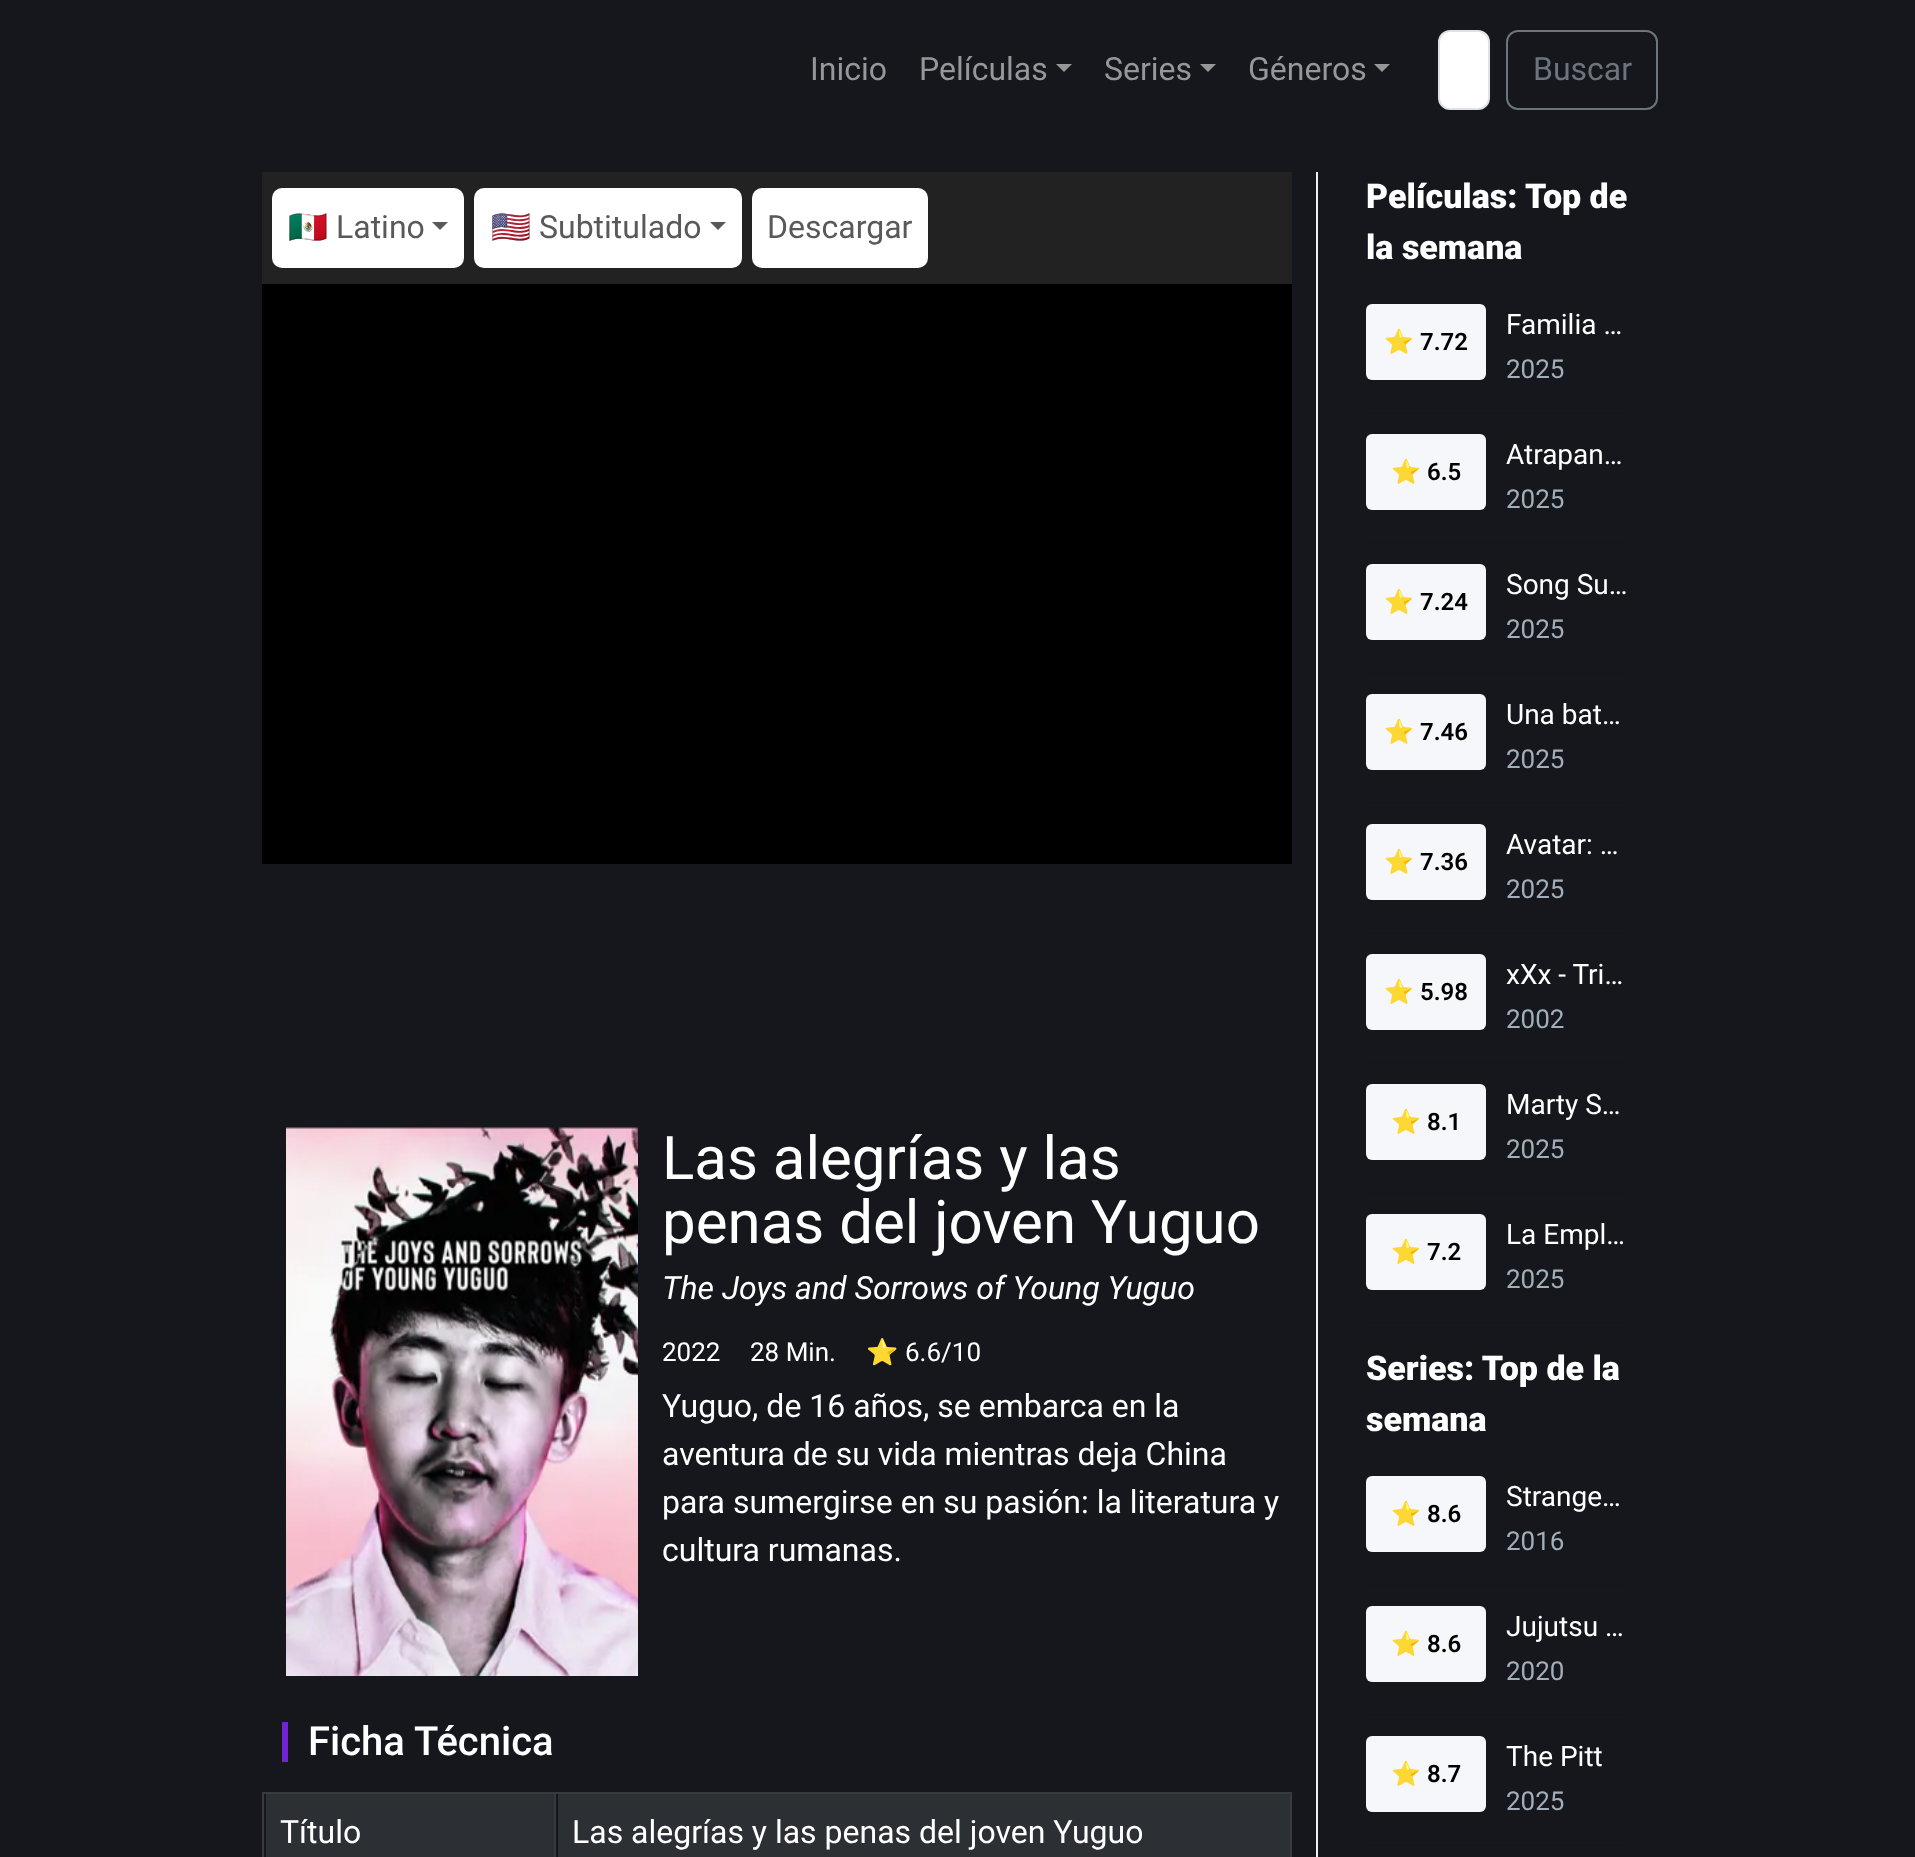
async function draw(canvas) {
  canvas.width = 1915;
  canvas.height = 1857;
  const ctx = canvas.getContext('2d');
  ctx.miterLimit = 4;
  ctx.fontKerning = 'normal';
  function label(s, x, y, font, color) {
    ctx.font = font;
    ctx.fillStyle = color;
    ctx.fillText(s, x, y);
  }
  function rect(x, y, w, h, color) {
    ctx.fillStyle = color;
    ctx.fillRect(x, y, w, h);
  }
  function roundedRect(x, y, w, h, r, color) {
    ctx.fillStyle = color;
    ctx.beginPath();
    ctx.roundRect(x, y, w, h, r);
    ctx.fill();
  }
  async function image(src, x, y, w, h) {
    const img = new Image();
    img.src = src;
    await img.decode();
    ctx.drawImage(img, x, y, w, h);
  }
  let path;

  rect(0, 0, 1915, 1857, '#15171c');
  label('Inicio', 810, 80, '32px Roboto', '#969799');
  label('Películas', 919, 80, '32px Roboto', '#969799');
  path = new Path2D('M1056 64H1072L1064 72Z');
  ctx.fill(path);
  label('Series', 1104, 80, '32px Roboto', '#969799');
  path = new Path2D('M1200 64H1216L1208 72Z');
  ctx.fill(path);
  label('Géneros', 1248, 80, '32px Roboto', '#969799');
  path = new Path2D('M1374 64H1390L1382 72Z');
  ctx.fill(path);
  ctx.fillStyle = '#fff';
  ctx.beginPath();
  ctx.roundRect(1439, 31, 50, 78, 11);
  ctx.fill();
  ctx.strokeStyle = '#dee2e6';
  ctx.lineWidth = 2;
  ctx.stroke();
  ctx.beginPath();
  ctx.roundRect(1507, 31, 150, 78, 11);
  ctx.strokeStyle = '#6c757d';
  ctx.stroke();
  label('Buscar', 1533, 80, '32px Roboto', '#6c757d');
  rect(1316, 172, 2, 1685, '#eceff5');
  rect(262, 172, 1030, 112, '#222');
  roundedRect(272, 188, 192, 80, 10, '#fff');
  label('🇲🇽', 288, 238, '32px Noto Color Emoji', '#595959');
  label('Latino', 336, 238, '32px Roboto', '#595959');
  path = new Path2D('M432 222H448L440 230Z');
  ctx.fill(path);
  roundedRect(474, 188, 268, 80, 10, '#fff');
  label('🇺🇸', 491, 238, '32px Noto Color Emoji', '#595959');
  label('Subtitulado', 539, 238, '32px Roboto', '#595959');
  path = new Path2D('M710 222H726L718 230Z');
  ctx.fill(path);
  roundedRect(752, 188, 176, 80, 10, '#fff');
  label('Descargar', 767, 238, '32px Roboto', '#595959');
  rect(262, 284, 1030, 580, '#000');
  await image('assets/img1.png', 286, 1127, 352, 549);
  label('Las alegrías y las', 662, 1179, '60px Roboto', '#fff');
  label('penas del joven Yuguo', 662, 1243, '60px Roboto', '#fff');
  label('The Joys and Sorrows of Young Yuguo', 662, 1299, 'italic 32px Roboto', '#fff');
  label('2022', 662, 1361, '26px Roboto', '#fff');
  label('28 Min.', 750, 1361, '26px Roboto', '#fff');
  label('⭐', 866, 1361, '26px Noto Color Emoji', '#fff');
  label('6.6/10', 905, 1361, '26px Roboto', '#fff');
  label('Yuguo, de 16 años, se embarca en la', 662, 1417, '32px Roboto', '#fff');
  label('aventura de su vida mientras deja China', 662, 1465, '32px Roboto', '#fff');
  label('para sumergirse en su pasión: la literatura y', 662, 1513, '32px Roboto', '#fff');
  label('cultura rumanas.', 662, 1561, '32px Roboto', '#fff');
  rect(282, 1722, 6, 40, '#7124d3');
  label('Ficha Técnica', 308, 1755, '500 40px Roboto', '#fff');
  rect(262, 1792, 1030, 2, '#373b3e');
  rect(266, 1794, 288, 63, '#2c3034');
  rect(262, 1792, 2, 65, '#373b3e');
  label('Título', 280, 1843, '32px Roboto', '#fff');
  rect(558, 1794, 732, 63, '#2c3034');
  rect(1290, 1792, 2, 65, '#373b3e');
  rect(554, 1792, 2, 65, '#373b3e');
  label('Las alegrías y las penas del joven Yuguo', 572, 1843, '32px Roboto', '#fff');
  label('Películas: Top de', 1366, 208, '900 34px Roboto', '#fff');
  label('la semana', 1366, 259, '900 34px Roboto', '#fff');
  path = new Path2D('M1366 413H1630');
  ctx.strokeStyle = '#131519';
  ctx.setLineDash([2, 2]);
  ctx.stroke(path);
  roundedRect(1366, 304, 120, 76, 6, '#f5f7fa');
  label('⭐', 1384, 350, 'bold 24px Noto Color Emoji', '#000');
  label('7.72', 1420, 350, '600 24px Roboto', '#000');
  label('Familia …', 1506, 334, '28px Roboto', '#fff');
  label('2025', 1506, 378, '26px Roboto', '#a2aeb9');
  path = new Path2D('M1366 543H1630');
  ctx.stroke(path);
  roundedRect(1366, 434, 120, 76, 6, '#f5f7fa');
  label('⭐', 1391, 480, 'bold 24px Noto Color Emoji', '#000');
  label('6.5', 1427, 480, '600 24px Roboto', '#000');
  label('Atrapan…', 1506, 464, '28px Roboto', '#fff');
  label('2025', 1506, 508, '26px Roboto', '#a2aeb9');
  path = new Path2D('M1366 673H1630');
  ctx.stroke(path);
  roundedRect(1366, 564, 120, 76, 6, '#f5f7fa');
  label('⭐', 1384, 610, 'bold 24px Noto Color Emoji', '#000');
  label('7.24', 1420, 610, '600 24px Roboto', '#000');
  label('Song Su…', 1506, 594, '28px Roboto', '#fff');
  label('2025', 1506, 638, '26px Roboto', '#a2aeb9');
  path = new Path2D('M1366 803H1630');
  ctx.stroke(path);
  roundedRect(1366, 694, 120, 76, 6, '#f5f7fa');
  label('⭐', 1384, 740, 'bold 24px Noto Color Emoji', '#000');
  label('7.46', 1420, 740, '600 24px Roboto', '#000');
  label('Una bat…', 1506, 724, '28px Roboto', '#fff');
  label('2025', 1506, 768, '26px Roboto', '#a2aeb9');
  path = new Path2D('M1366 933H1630');
  ctx.stroke(path);
  roundedRect(1366, 824, 120, 76, 6, '#f5f7fa');
  label('⭐', 1384, 870, 'bold 24px Noto Color Emoji', '#000');
  label('7.36', 1420, 870, '600 24px Roboto', '#000');
  label('Avatar: …', 1506, 854, '28px Roboto', '#fff');
  label('2025', 1506, 898, '26px Roboto', '#a2aeb9');
  path = new Path2D('M1366 1063H1630');
  ctx.stroke(path);
  roundedRect(1366, 954, 120, 76, 6, '#f5f7fa');
  label('⭐', 1384, 1000, 'bold 24px Noto Color Emoji', '#000');
  label('5.98', 1420, 1000, '600 24px Roboto', '#000');
  label('xXx - Tri…', 1506, 984, '28px Roboto', '#fff');
  label('2002', 1506, 1028, '26px Roboto', '#a2aeb9');
  path = new Path2D('M1366 1193H1630');
  ctx.stroke(path);
  roundedRect(1366, 1084, 120, 76, 6, '#f5f7fa');
  label('⭐', 1391, 1130, 'bold 24px Noto Color Emoji', '#000');
  label('8.1', 1427, 1130, '600 24px Roboto', '#000');
  label('Marty S…', 1506, 1114, '28px Roboto', '#fff');
  label('2025', 1506, 1158, '26px Roboto', '#a2aeb9');
  path = new Path2D('M1366 1323H1630');
  ctx.stroke(path);
  roundedRect(1366, 1214, 120, 76, 6, '#f5f7fa');
  label('⭐', 1391, 1260, 'bold 24px Noto Color Emoji', '#000');
  label('7.2', 1427, 1260, '600 24px Roboto', '#000');
  label('La Empl…', 1506, 1244, '28px Roboto', '#fff');
  label('2025', 1506, 1288, '26px Roboto', '#a2aeb9');
  label('Series: Top de la', 1366, 1380, '900 34px Roboto', '#fff');
  label('semana', 1366, 1431, '900 34px Roboto', '#fff');
  path = new Path2D('M1366 1585H1630');
  ctx.stroke(path);
  roundedRect(1366, 1476, 120, 76, 6, '#f5f7fa');
  label('⭐', 1391, 1522, 'bold 24px Noto Color Emoji', '#000');
  label('8.6', 1427, 1522, '600 24px Roboto', '#000');
  label('Strange…', 1506, 1506, '28px Roboto', '#fff');
  label('2016', 1506, 1550, '26px Roboto', '#a2aeb9');
  path = new Path2D('M1366 1715H1630');
  ctx.stroke(path);
  roundedRect(1366, 1606, 120, 76, 6, '#f5f7fa');
  label('⭐', 1391, 1652, 'bold 24px Noto Color Emoji', '#000');
  label('8.6', 1427, 1652, '600 24px Roboto', '#000');
  label('Jujutsu …', 1506, 1636, '28px Roboto', '#fff');
  label('2020', 1506, 1680, '26px Roboto', '#a2aeb9');
  path = new Path2D('M1366 1845H1630');
  ctx.stroke(path);
  roundedRect(1366, 1736, 120, 76, 6, '#f5f7fa');
  label('⭐', 1391, 1782, 'bold 24px Noto Color Emoji', '#000');
  label('8.7', 1427, 1782, '600 24px Roboto', '#000');
  label('The Pitt', 1506, 1766, '28px Roboto', '#fff');
  label('2025', 1506, 1810, '26px Roboto', '#a2aeb9');
}

draw(document.querySelector('canvas'));
